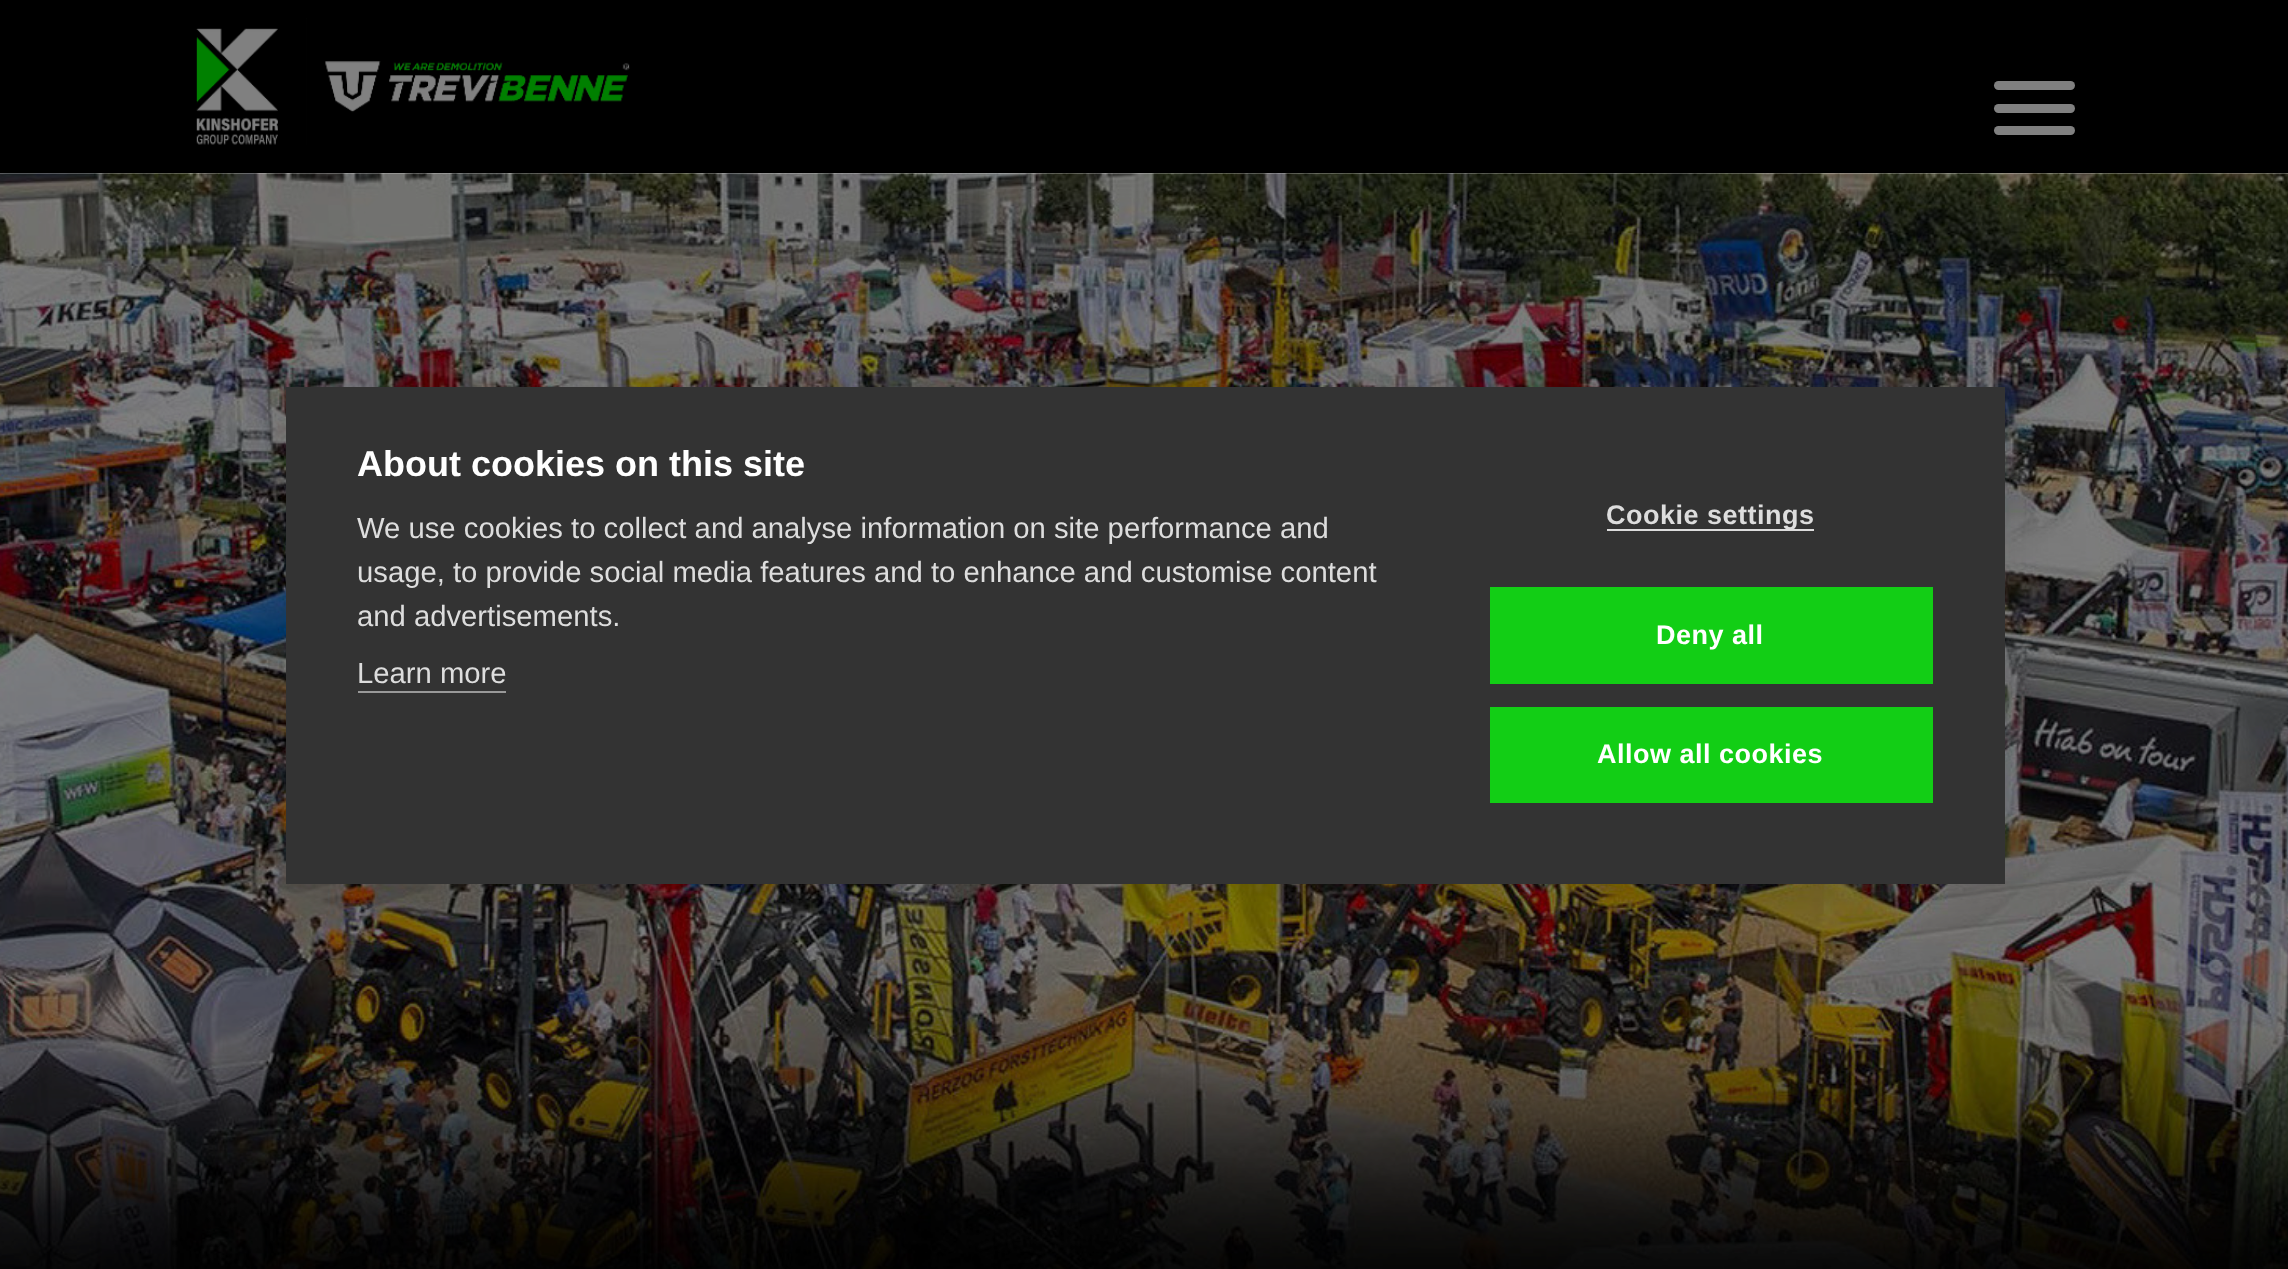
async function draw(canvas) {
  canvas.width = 2288;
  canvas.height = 1269;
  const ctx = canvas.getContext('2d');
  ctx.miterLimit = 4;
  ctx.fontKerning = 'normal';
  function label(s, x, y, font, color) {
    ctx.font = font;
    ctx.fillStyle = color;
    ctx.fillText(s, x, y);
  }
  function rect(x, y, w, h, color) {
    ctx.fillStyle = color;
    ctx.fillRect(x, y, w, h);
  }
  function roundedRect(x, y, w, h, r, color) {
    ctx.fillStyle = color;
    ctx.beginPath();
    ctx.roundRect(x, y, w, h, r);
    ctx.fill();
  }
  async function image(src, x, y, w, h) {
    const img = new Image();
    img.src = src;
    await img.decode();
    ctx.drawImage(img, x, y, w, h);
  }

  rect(0, 0, 2288, 1269, '#fff');
  rect(0, 0, 2288, 173, '#000');
  await image('assets/img1.png', 196, 18, 434, 127);
  roundedRect(1994, 81, 81, 9, 4.5, '#808080');
  roundedRect(1994, 104, 81, 9, 4.5, '#808080');
  roundedRect(1994, 126, 81, 9, 4.5, '#808080');
  await image('assets/img2.png', 0, 173, 2288, 1096);
  ctx.fillStyle = '#0000001a';
  ctx.filter = 'blur(22.5px)';
  ctx.beginPath();
  ctx.rect(286, 387, 1719, 497);
  ctx.fill();
  ctx.filter = 'none';
  rect(286, 387, 1719, 497, '#333');
  label('About cookies on this site', 357, 476, 'bold 36px Liberation Sans', '#fff');
  label('We use cookies to collect and analyse information on site performance and', 357, 538, '29.25px Liberation Sans', '#ddd');
  label('usage, to provide social media features and to enhance and customise content', 357, 582, '29.25px Liberation Sans', '#ddd');
  label('and advertisements.', 357, 626, '29.25px Liberation Sans', '#ddd');
  label('Learn more', 357, 683, '29.25px Liberation Sans', '#ddd');
  rect(358, 691, 148, 2, '#999');
  rect(1607, 529, 207, 2, '#ddd');
  ctx.letterSpacing = '0.5px';
  label('Cookie settings', 1606, 524, 'bold 27px Liberation Sans', '#ddd');
  rect(1490, 587, 443, 97, '#12ce15');
  label('Deny all', 1656, 644, 'bold 27px Liberation Sans', '#fff');
  rect(1490, 707, 443, 96, '#12ce15');
  label('Allow all cookies', 1597, 763, 'bold 27px Liberation Sans', '#fff');
}

draw(document.querySelector('canvas'));
